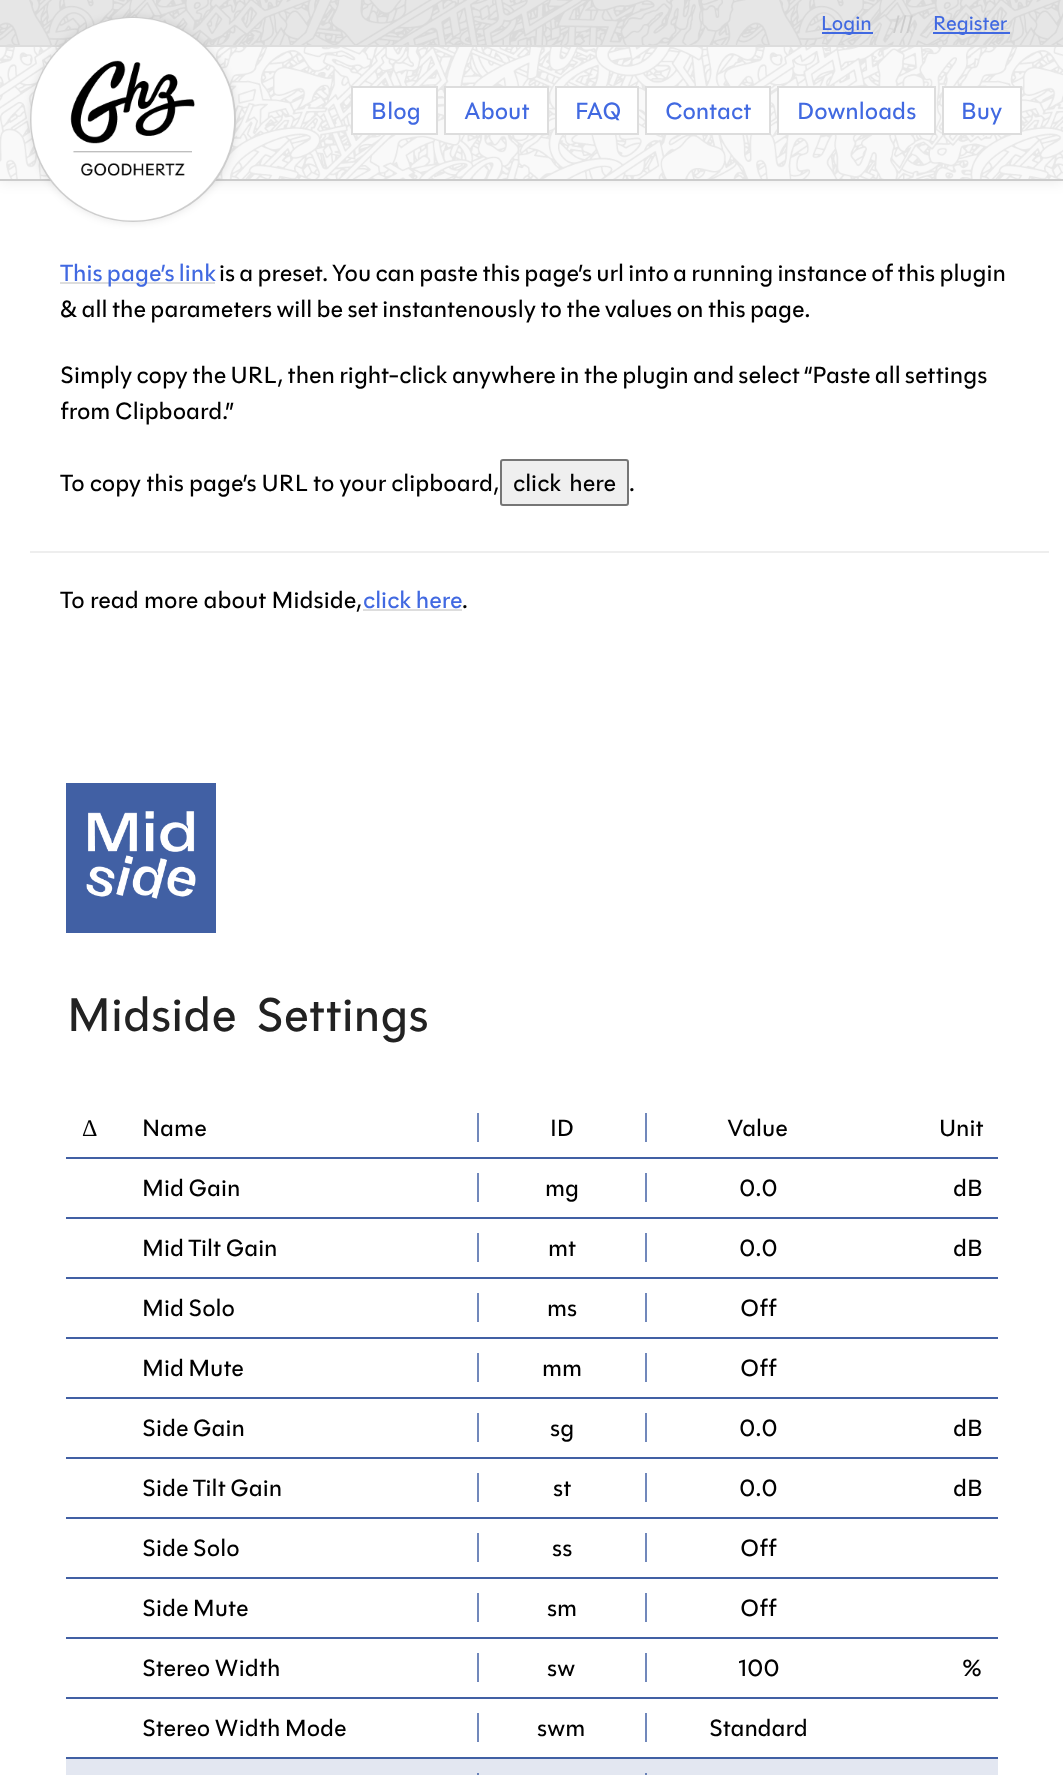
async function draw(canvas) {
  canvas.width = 1063;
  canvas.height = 1775;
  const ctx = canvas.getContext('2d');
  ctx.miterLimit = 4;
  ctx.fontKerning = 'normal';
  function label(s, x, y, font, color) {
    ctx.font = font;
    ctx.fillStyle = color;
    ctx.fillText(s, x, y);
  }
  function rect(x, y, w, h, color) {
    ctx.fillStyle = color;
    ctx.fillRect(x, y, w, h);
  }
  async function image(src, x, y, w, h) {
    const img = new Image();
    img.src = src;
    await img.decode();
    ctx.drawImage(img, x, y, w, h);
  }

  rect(0, 0, 1063, 1775, '#fff');
  rect(66, 1759, 932, 16, '#e3e7f1');
  ctx.fillStyle = '#0000001a';
  ctx.filter = 'blur(7.5px)';
  ctx.beginPath();
  ctx.rect(0, 0, 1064, 180);
  ctx.fill();
  ctx.filter = 'none';
  await image('assets/img1.png', 0, 47, 1063, 132);
  rect(0, 179, 1063, 2, '#ccc');
  await image('assets/img2.png', 0, 0, 1063, 45);
  rect(0, 45, 1063, 2, '#ddd');
  rect(822, 32, 51, 2, '#4169e1');
  label('Login', 821, 30, '500 20.5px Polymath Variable', '#4169e1');
  label('///', 893, 30, '500 20.5px Polymath Variable', '#ccc');
  rect(933, 32, 77, 2, '#4169e1');
  label('Register', 933, 30, '500 20.5px Polymath Variable', '#4169e1');
  ctx.fillStyle = '#0000001a';
  ctx.filter = 'blur(4.5px)';
  ctx.beginPath();
  ctx.roundRect(30, 17, 206, 205, 102.5);
  ctx.fill();
  ctx.filter = 'none';
  ctx.beginPath();
  ctx.roundRect(31, 18, 204, 203, 101.5);
  ctx.strokeStyle = '#ccc';
  ctx.lineWidth = 2;
  ctx.stroke();
  await image('assets/img3.png', 31, 18, 203, 203);
  ctx.fillStyle = '#fff';
  ctx.beginPath();
  ctx.rect(352, 87, 85, 47);
  ctx.fill();
  ctx.strokeStyle = '#ddd';
  ctx.stroke();
  label('Blog', 371, 119, '500 24px Polymath Variable', '#4169e1');
  ctx.fillStyle = '#fff';
  ctx.beginPath();
  ctx.rect(445, 87, 103, 47);
  ctx.fill();
  ctx.stroke();
  label('About', 464, 119, '500 24px Polymath Variable', '#4169e1');
  ctx.fillStyle = '#fff';
  ctx.beginPath();
  ctx.rect(556, 87, 82, 47);
  ctx.fill();
  ctx.stroke();
  label('FAQ', 575, 119, '500 24px Polymath Variable', '#4169e1');
  ctx.fillStyle = '#fff';
  ctx.beginPath();
  ctx.rect(646, 87, 124, 47);
  ctx.fill();
  ctx.stroke();
  label('Contact', 665, 119, '500 24px Polymath Variable', '#4169e1');
  ctx.fillStyle = '#fff';
  ctx.beginPath();
  ctx.rect(778, 87, 157, 47);
  ctx.fill();
  ctx.stroke();
  label('Downloads', 797, 119, '500 24px Polymath Variable', '#4169e1');
  ctx.fillStyle = '#fff';
  ctx.beginPath();
  ctx.rect(943, 87, 78, 47);
  ctx.fill();
  ctx.stroke();
  label('Buy', 961, 119, '500 24px Polymath Variable', '#4169e1');
  rect(60, 282, 155, 2, '#ddd');
  ctx.wordSpacing = '-1.5px';
  label('This page’s link', 60, 281, '500 24px Polymath Variable', '#4169e1');
  label('is a preset. You can paste this page’s url into a running instance of this plugin', 219, 281, '500 24px Polymath Variable', '#000');
  ctx.wordSpacing = '-1.4px';
  label('& all the parameters will be set instantenously to the values on this page.', 60, 317, '500 24px Polymath Variable', '#000');
  ctx.wordSpacing = '-1.5px';
  label('Simply copy the URL, then right-click anywhere in the plugin and select “Paste all settings', 60, 383, '500 24px Polymath Variable', '#000');
  label('from Clipboard.”', 60, 419, '500 24px Polymath Variable', '#000');
  ctx.wordSpacing = '-0.75px';
  label('To copy this page’s URL to your clipboard,', 60, 491, '500 24px Polymath Variable', '#000');
  ctx.fillStyle = '#efefef';
  ctx.beginPath();
  ctx.roundRect(501, 460, 127, 45, 2);
  ctx.fill();
  ctx.strokeStyle = '#767676';
  ctx.stroke();
  ctx.wordSpacing = '2px';
  label('click here', 513, 491, '500 24px Polymath Variable', '#000');
  ctx.wordSpacing = '0px';
  label('.', 629, 491, '500 24px Polymath Variable', '#000');
  rect(30, 551, 1019, 2, '#eee');
  ctx.wordSpacing = '-0.5px';
  label('To read more about Midside,', 60, 608, '500 24px Polymath Variable', '#000');
  ctx.wordSpacing = '-1.5px';
  label('click here', 363, 608, '500 24px Polymath Variable', '#4169e1');
  rect(363, 609, 99, 2, '#ddd');
  ctx.wordSpacing = '0px';
  label('.', 462, 608, '500 24px Polymath Variable', '#000');
  await image('assets/img4.png', 66, 783, 150, 150);
  ctx.wordSpacing = '8px';
  label('Midside Settings', 67, 1031, '500 48px Polymath Variable', '#222');
  rect(66, 1157, 932, 2, '#4160a4');
  ctx.wordSpacing = '0px';
  label('Δ', 82, 1136, '24px Liberation Serif', '#000');
  label('Name', 142, 1136, '500 24px Polymath Variable', '#000');
  rect(645, 1113, 2, 29, '#7188bb');
  rect(477, 1113, 2, 29, '#7188bb');
  label('ID', 550, 1136, '500 24px Polymath Variable', '#000');
  label('Value', 727, 1136, '500 24px Polymath Variable', '#000');
  label('Unit', 939, 1136, '500 24px Polymath Variable', '#000');
  rect(66, 1217, 932, 2, '#4160a4');
  ctx.wordSpacing = '-1.5px';
  label('Mid Gain', 142, 1196, '500 24px Polymath Variable', '#000');
  rect(645, 1173, 2, 29, '#7188bb');
  rect(477, 1173, 2, 29, '#7188bb');
  ctx.wordSpacing = '0px';
  label('mg', 545, 1196, '500 24px Polymath Variable', '#000');
  label('0.0', 739, 1196, '500 24px Polymath Variable', '#000');
  label('dB', 953, 1196, '500 24px Polymath Variable', '#000');
  rect(66, 1277, 932, 2, '#4160a4');
  ctx.wordSpacing = '-1.5px';
  label('Mid Tilt Gain', 142, 1256, '500 24px Polymath Variable', '#000');
  rect(645, 1233, 2, 29, '#7188bb');
  rect(477, 1233, 2, 29, '#7188bb');
  ctx.wordSpacing = '0px';
  label('mt', 548, 1256, '500 24px Polymath Variable', '#000');
  label('0.0', 739, 1256, '500 24px Polymath Variable', '#000');
  label('dB', 953, 1256, '500 24px Polymath Variable', '#000');
  rect(66, 1337, 932, 2, '#4160a4');
  ctx.wordSpacing = '-1.5px';
  label('Mid Solo', 142, 1316, '500 24px Polymath Variable', '#000');
  rect(645, 1293, 2, 29, '#7188bb');
  rect(477, 1293, 2, 29, '#7188bb');
  ctx.wordSpacing = '0px';
  label('ms', 547, 1316, '500 24px Polymath Variable', '#000');
  label('Off', 740, 1316, '500 24px Polymath Variable', '#000');
  rect(66, 1397, 932, 2, '#4160a4');
  ctx.wordSpacing = '-1.5px';
  label('Mid Mute', 142, 1376, '500 24px Polymath Variable', '#000');
  rect(645, 1353, 2, 29, '#7188bb');
  rect(477, 1353, 2, 29, '#7188bb');
  ctx.wordSpacing = '0px';
  label('mm', 542, 1376, '500 24px Polymath Variable', '#000');
  label('Off', 740, 1376, '500 24px Polymath Variable', '#000');
  rect(66, 1457, 932, 2, '#4160a4');
  ctx.wordSpacing = '-1.5px';
  label('Side Gain', 142, 1436, '500 24px Polymath Variable', '#000');
  rect(645, 1413, 2, 29, '#7188bb');
  rect(477, 1413, 2, 29, '#7188bb');
  ctx.wordSpacing = '0px';
  label('sg', 550, 1436, '500 24px Polymath Variable', '#000');
  label('0.0', 739, 1436, '500 24px Polymath Variable', '#000');
  label('dB', 953, 1436, '500 24px Polymath Variable', '#000');
  rect(66, 1517, 932, 2, '#4160a4');
  ctx.wordSpacing = '-1.5px';
  label('Side Tilt Gain', 142, 1496, '500 24px Polymath Variable', '#000');
  rect(645, 1473, 2, 29, '#7188bb');
  rect(477, 1473, 2, 29, '#7188bb');
  ctx.wordSpacing = '0px';
  label('st', 553, 1496, '500 24px Polymath Variable', '#000');
  label('0.0', 739, 1496, '500 24px Polymath Variable', '#000');
  label('dB', 953, 1496, '500 24px Polymath Variable', '#000');
  rect(66, 1577, 932, 2, '#4160a4');
  ctx.wordSpacing = '-1.5px';
  label('Side Solo', 142, 1556, '500 24px Polymath Variable', '#000');
  rect(645, 1533, 2, 29, '#7188bb');
  rect(477, 1533, 2, 29, '#7188bb');
  ctx.wordSpacing = '0px';
  label('ss', 552, 1556, '500 24px Polymath Variable', '#000');
  label('Off', 740, 1556, '500 24px Polymath Variable', '#000');
  rect(66, 1637, 932, 2, '#4160a4');
  ctx.wordSpacing = '-1.5px';
  label('Side Mute', 142, 1616, '500 24px Polymath Variable', '#000');
  rect(645, 1593, 2, 29, '#7188bb');
  rect(477, 1593, 2, 29, '#7188bb');
  ctx.wordSpacing = '0px';
  label('sm', 547, 1616, '500 24px Polymath Variable', '#000');
  label('Off', 740, 1616, '500 24px Polymath Variable', '#000');
  rect(66, 1697, 932, 2, '#4160a4');
  ctx.wordSpacing = '-1.5px';
  label('Stereo Width', 142, 1676, '500 24px Polymath Variable', '#000');
  rect(645, 1653, 2, 29, '#7188bb');
  rect(477, 1653, 2, 29, '#7188bb');
  ctx.wordSpacing = '0px';
  label('sw', 547, 1676, '500 24px Polymath Variable', '#000');
  label('100', 738, 1676, '500 24px Polymath Variable', '#000');
  label('%', 962, 1676, '500 24px Polymath Variable', '#000');
  rect(66, 1757, 932, 2, '#4160a4');
  ctx.wordSpacing = '-1.5px';
  label('Stereo Width Mode', 142, 1736, '500 24px Polymath Variable', '#000');
  rect(645, 1713, 2, 29, '#7188bb');
  rect(477, 1713, 2, 29, '#7188bb');
  ctx.wordSpacing = '0px';
  label('swm', 537, 1736, '500 24px Polymath Variable', '#000');
  label('Standard', 709, 1736, '500 24px Polymath Variable', '#000');
  rect(645, 1773, 2, 2, '#6982b7');
  rect(477, 1773, 2, 2, '#6982b7');
}

draw(document.querySelector('canvas'));
